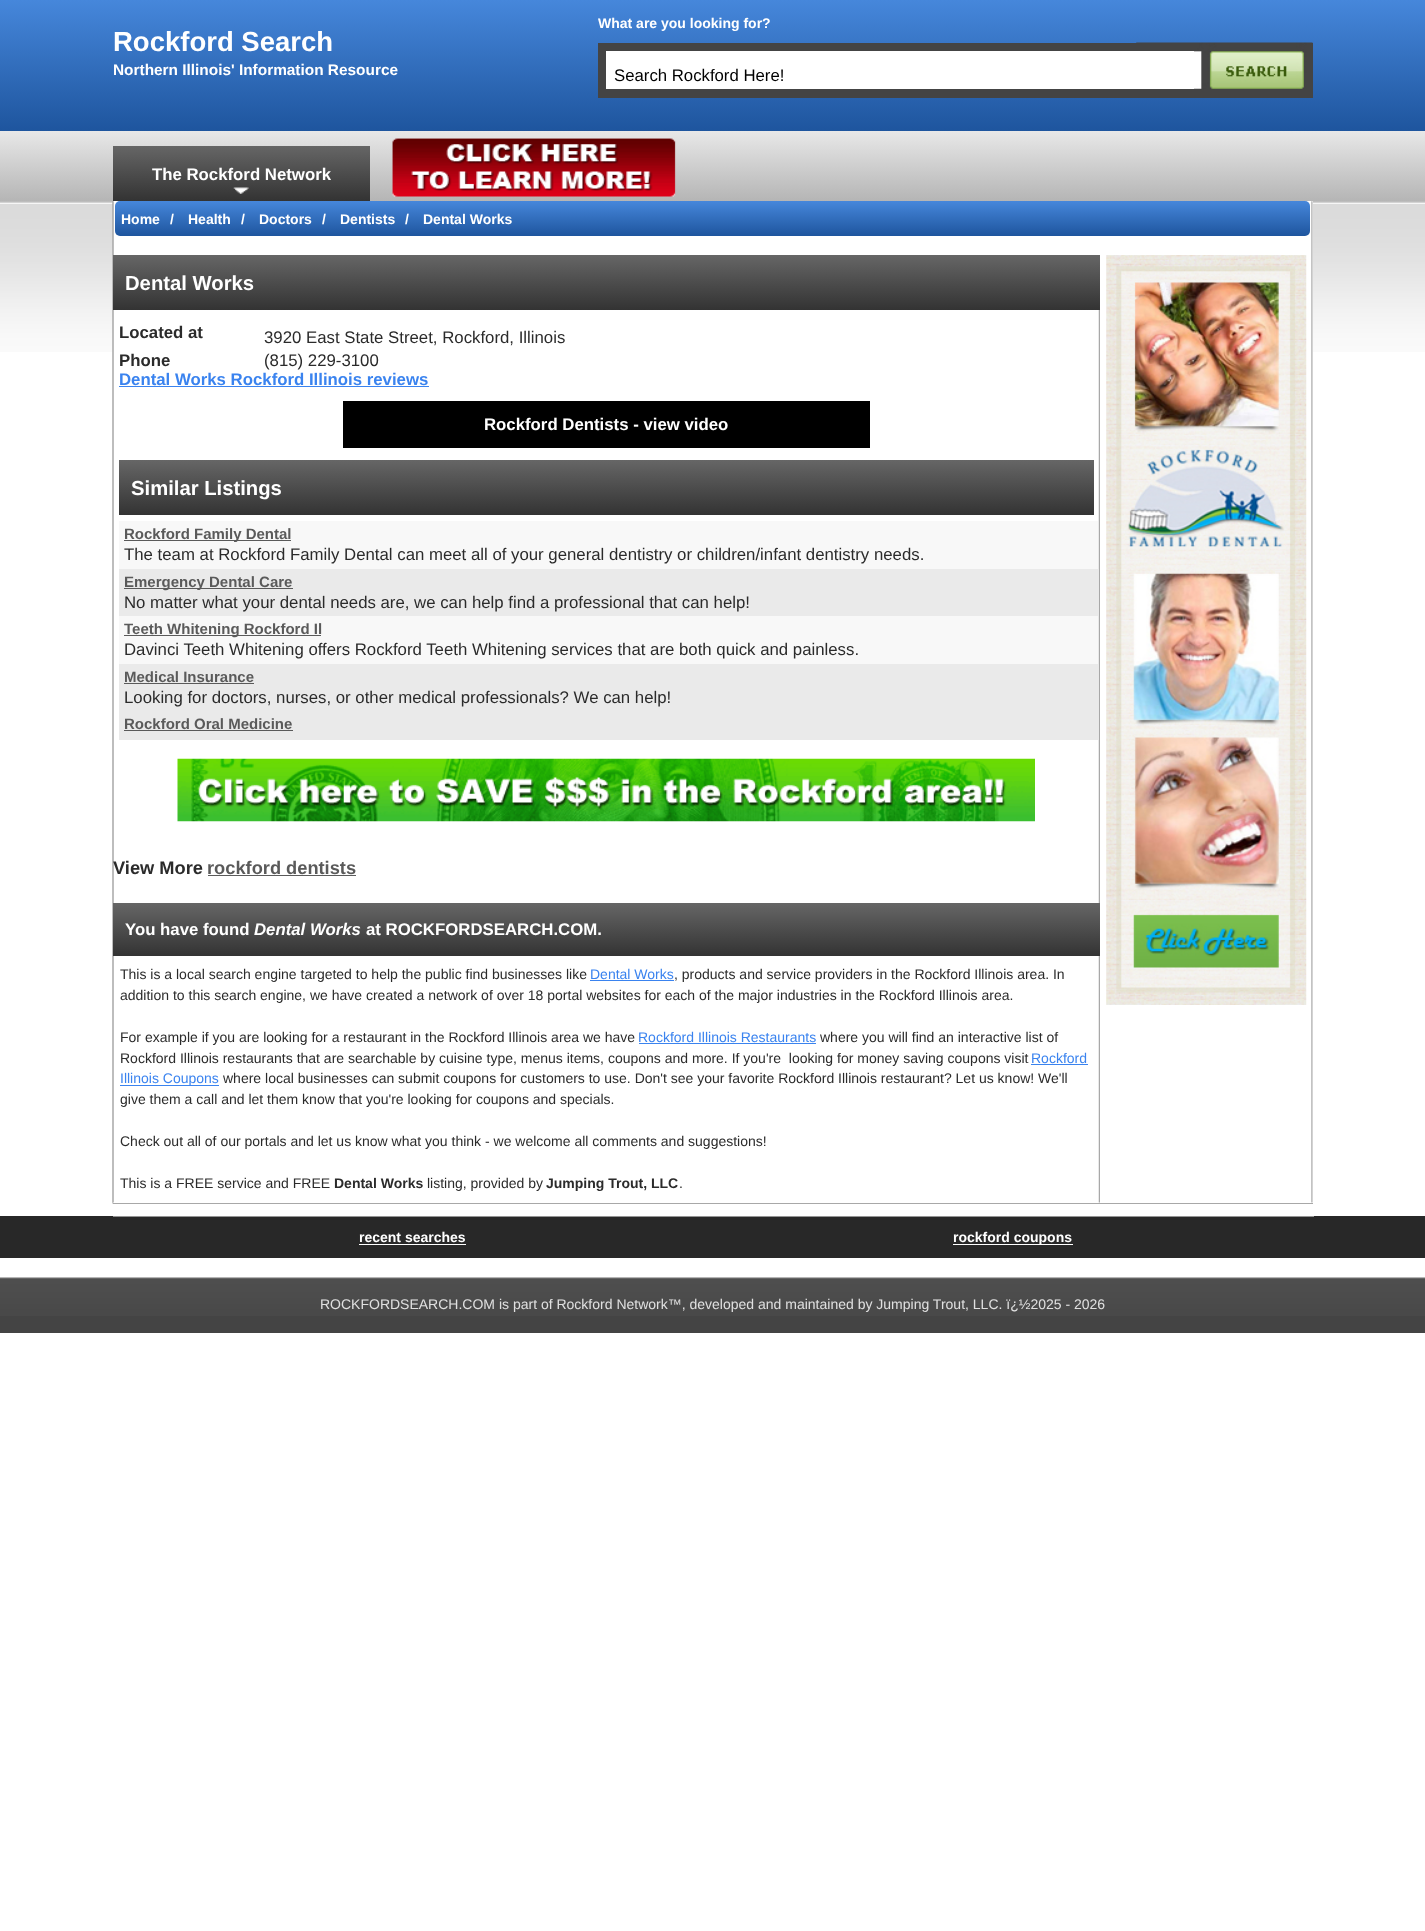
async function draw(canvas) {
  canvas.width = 1425;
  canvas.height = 1931;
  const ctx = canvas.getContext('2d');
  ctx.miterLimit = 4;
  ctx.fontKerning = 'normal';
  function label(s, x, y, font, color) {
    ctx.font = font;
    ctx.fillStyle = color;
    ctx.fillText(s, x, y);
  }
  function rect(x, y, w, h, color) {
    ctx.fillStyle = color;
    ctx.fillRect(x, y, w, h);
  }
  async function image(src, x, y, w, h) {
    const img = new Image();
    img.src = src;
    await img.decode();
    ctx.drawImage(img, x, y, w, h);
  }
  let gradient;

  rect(0, 0, 1425, 1931, '#fff');
  gradient = ctx.createLinearGradient(713, 0, 713, 131);
  gradient.addColorStop(0, '#4687db');
  gradient.addColorStop(1, '#1e559e');
  ctx.fillStyle = gradient;
  ctx.fillRect(0, 0, 1425, 131);
  label('Rockford Search', 113, 51, 'bold 27.5px Liberation Sans', '#fff');
  label('Northern Illinois\' Information Resource', 113, 75, 'bold 15.4px Liberation Sans', '#fff');
  label('What are you looking for?', 598, 28, 'bold 14px Liberation Sans', '#fff');
  rect(598, 43, 715, 55, '#444');
  await image('assets/img1.png', 1136, 42, 177, 48);
  rect(606, 51, 588, 38, '#fff');
  label('Search Rockford Here!', 614, 81, '16.75px Liberation Sans', '#000');
  gradient = ctx.createLinearGradient(713, 131, 713, 201);
  gradient.addColorStop(0, '#e8e8e8');
  gradient.addColorStop(1, '#b5b5b5');
  ctx.fillStyle = gradient;
  ctx.fillRect(0, 131, 1425, 70);
  gradient = ctx.createLinearGradient(241, 146, 241, 201);
  gradient.addColorStop(0, '#666');
  gradient.addColorStop(1, '#333');
  ctx.fillStyle = gradient;
  ctx.fillRect(113, 146, 257, 55);
  await image('assets/img2.png', 233, 187, 16, 7);
  label('The Rockford Network', 152, 180, 'bold 16.8px Liberation Sans', '#fff');
  await image('assets/img3.png', 392, 138, 284, 59);
  await image('assets/img4.png', 0, 201, 1425, 151);
  await image('assets/img5.png', 112, 201, 1, 1003);
  rect(113, 1203, 1200, 1, '#a8a8a8');
  rect(113, 201, 1200, 151, '#fff');
  await image('assets/img6.png', 112, 201, 1201, 1002);
  gradient = ctx.createLinearGradient(713, 201, 713, 236);
  gradient.addColorStop(0, '#4687db');
  gradient.addColorStop(1, '#1e559e');
  ctx.fillStyle = gradient;
  ctx.beginPath();
  ctx.roundRect(115, 201, 1195, 35, 5);
  ctx.fill();
  label('Home', 121, 224, 'bold 14px Liberation Sans', '#fff');
  label('/', 170, 224, 'bold 14px Liberation Sans', '#fff');
  label('Health', 188, 224, 'bold 14px Liberation Sans', '#fff');
  label('/', 241, 224, 'bold 14px Liberation Sans', '#fff');
  label('Doctors', 259, 224, 'bold 14px Liberation Sans', '#fff');
  label('/', 322, 224, 'bold 14px Liberation Sans', '#fff');
  label('Dentists', 340, 224, 'bold 14px Liberation Sans', '#fff');
  label('/', 405, 224, 'bold 14px Liberation Sans', '#fff');
  label('Dental Works', 423, 224, 'bold 14px Liberation Sans', '#fff');
  await image('assets/img7.png', 1098, 310, 2, 893);
  gradient = ctx.createLinearGradient(606, 255, 606, 310);
  gradient.addColorStop(0, '#666');
  gradient.addColorStop(1, '#333');
  ctx.fillStyle = gradient;
  ctx.fillRect(113, 255, 987, 55);
  label('Dental Works', 125, 290, 'bold 20.25px Liberation Sans', '#fff');
  label('Located at', 119, 338, 'bold 16.8px Liberation Sans', '#2b2b2b');
  label('3920 East State Street, Rockford, Illinois', 264, 343, '16.8px Liberation Sans', '#2b2b2b');
  label('Phone', 119, 366, 'bold 16.8px Liberation Sans', '#2b2b2b');
  label('(815) 229-3100', 264, 366, '16.8px Liberation Sans', '#2b2b2b');
  label('Dental Works Rockford Illinois reviews', 119, 385, 'bold 16.8px Liberation Sans', '#3a83ef');
  rect(119, 386, 310, 1, '#3a83ef');
  rect(343, 401, 527, 47, '#000');
  label('Rockford Dentists - view video', 484, 430, 'bold 16.8px Liberation Sans', '#fff');
  gradient = ctx.createLinearGradient(606, 460, 606, 515);
  gradient.addColorStop(0, '#666');
  gradient.addColorStop(1, '#333');
  ctx.fillStyle = gradient;
  ctx.fillRect(119, 460, 975, 55);
  label('Similar Listings', 131, 495, 'bold 20.25px Liberation Sans', '#fff');
  rect(119, 521, 979, 48, '#f8f8f8');
  rect(124, 540, 167, 1, '#5a5a5a');
  label('Rockford Family Dental', 124, 539, 'bold 15px Liberation Sans', '#5a5a5a');
  label('The team at Rockford Family Dental can meet all of your general dentistry or children/infant dentistry needs.', 124, 560, '16.8px Liberation Sans', '#2b2b2b');
  rect(119, 569, 979, 47, '#eaeaea');
  rect(124, 588, 169, 1, '#5a5a5a');
  label('Emergency Dental Care', 124, 587, 'bold 15px Liberation Sans', '#5a5a5a');
  label('No matter what your dental needs are, we can help find a professional that can help!', 124, 608, '16.8px Liberation Sans', '#2b2b2b');
  rect(119, 616, 979, 48, '#f8f8f8');
  rect(124, 635, 197, 1, '#5a5a5a');
  label('Teeth Whitening Rockford Il', 124, 634, 'bold 15px Liberation Sans', '#5a5a5a');
  label('Davinci Teeth Whitening offers Rockford Teeth Whitening services that are both quick and painless.', 124, 655, '16.8px Liberation Sans', '#2b2b2b');
  rect(119, 664, 979, 76, '#eaeaea');
  label('Medical Insurance', 124, 682, 'bold 15px Liberation Sans', '#5a5a5a');
  rect(124, 683, 130, 1, '#5a5a5a');
  label('Looking for doctors, nurses, or other medical professionals? We can help!', 124, 703, '16.8px Liberation Sans', '#2b2b2b');
  label('Rockford Oral Medicine', 124, 729, 'bold 15px Liberation Sans', '#5a5a5a');
  rect(124, 730, 169, 1, '#5a5a5a');
  await image('assets/img8.png', 177, 758, 858, 64);
  label('View More', 113, 874, 'bold 18.25px Liberation Sans', '#2b2b2b');
  label('rockford dentists', 207, 874, 'bold 18.25px Liberation Sans', '#5a5a5a');
  rect(208, 875, 148, 1, '#5a5a5a');
  gradient = ctx.createLinearGradient(606, 903, 606, 956);
  gradient.addColorStop(0, '#666');
  gradient.addColorStop(1, '#333');
  ctx.fillStyle = gradient;
  ctx.fillRect(113, 903, 987, 53);
  label('You have found', 125, 935, 'bold 16.8px Liberation Sans', '#fff');
  label('Dental Works', 254, 935, 'italic bold 16.8px Liberation Sans', '#fff');
  label('at ROCKFORDSEARCH.COM.', 366, 935, 'bold 16.8px Liberation Sans', '#fff');
  label('This is a local search engine targeted to help the public find businesses like', 120, 979, '14px Liberation Sans', '#2b2b2b');
  label('Dental Works', 590, 979, '14px Liberation Sans', '#3a83ef');
  rect(590, 980, 84, 1, '#3a83ef');
  label(', products and service providers in the Rockford Illinois area. In', 674, 979, '14px Liberation Sans', '#2b2b2b');
  label('addition to this search engine, we have created a network of over 18 portal websites for each of the major industries in the Rockford Illinois area.', 120, 1000, '14px Liberation Sans', '#2b2b2b');
  label('For example if you are looking for a restaurant in the Rockford Illinois area we have', 120, 1042, '14px Liberation Sans', '#2b2b2b');
  label('Rockford Illinois Restaurants', 638, 1042, '14px Liberation Sans', '#3a83ef');
  rect(639, 1043, 177, 1, '#3a83ef');
  label('where you will find an interactive list of', 820, 1042, '14px Liberation Sans', '#2b2b2b');
  label('Rockford Illinois restaurants that are searchable by cuisine type, menus items, coupons and more. If you\'re  looking for money saving coupons visit', 120, 1063, '14px Liberation Sans', '#2b2b2b');
  label('Rockford', 1031, 1063, '14px Liberation Sans', '#3a83ef');
  rect(1031, 1064, 57, 1, '#3a83ef');
  rect(120, 1085, 99, 1, '#3a83ef');
  label('Illinois Coupons', 120, 1083, '14px Liberation Sans', '#3a83ef');
  label('where local businesses can submit coupons for customers to use. Don\'t see your favorite Rockford Illinois restaurant? Let us know! We\'ll', 223, 1083, '14px Liberation Sans', '#2b2b2b');
  label('give them a call and let them know that you\'re looking for coupons and specials.', 120, 1104, '14px Liberation Sans', '#2b2b2b');
  label('Check out all of our portals and let us know what you think - we welcome all comments and suggestions!', 120, 1146, '14px Liberation Sans', '#2b2b2b');
  label('This is a FREE service and FREE', 120, 1188, '14px Liberation Sans', '#2b2b2b');
  label('Dental Works', 334, 1188, 'bold 14px Liberation Sans', '#2b2b2b');
  label('listing, provided by', 427, 1188, '14px Liberation Sans', '#2b2b2b');
  label('Jumping Trout, LLC', 546, 1188, 'bold 14px Liberation Sans', '#2b2b2b');
  label('.', 679, 1188, '14px Liberation Sans', '#2b2b2b');
  await image('assets/img9.png', 1106, 255, 201, 750);
  rect(0, 1216, 1425, 42, '#282828');
  label('recent searches', 359, 1242, 'bold 14px Liberation Sans', '#fff');
  rect(359, 1244, 107, 1, '#fff');
  rect(113, 1216, 1201, 1, '#949494');
  rect(953, 1244, 120, 1, '#fff');
  label('rockford coupons', 953, 1242, 'bold 14px Liberation Sans', '#fff');
  rect(0, 1316, 1425, 17, '#444');
  await image('assets/img10.png', 0, 1277, 1425, 39);
  label('ROCKFORDSEARCH.COM is part of Rockford Network™, developed and maintained by Jumping Trout, LLC. ï¿½2025 - 2026', 320, 1309, '14px Liberation Sans', '#e0e0e0');
}

draw(document.querySelector('canvas'));
